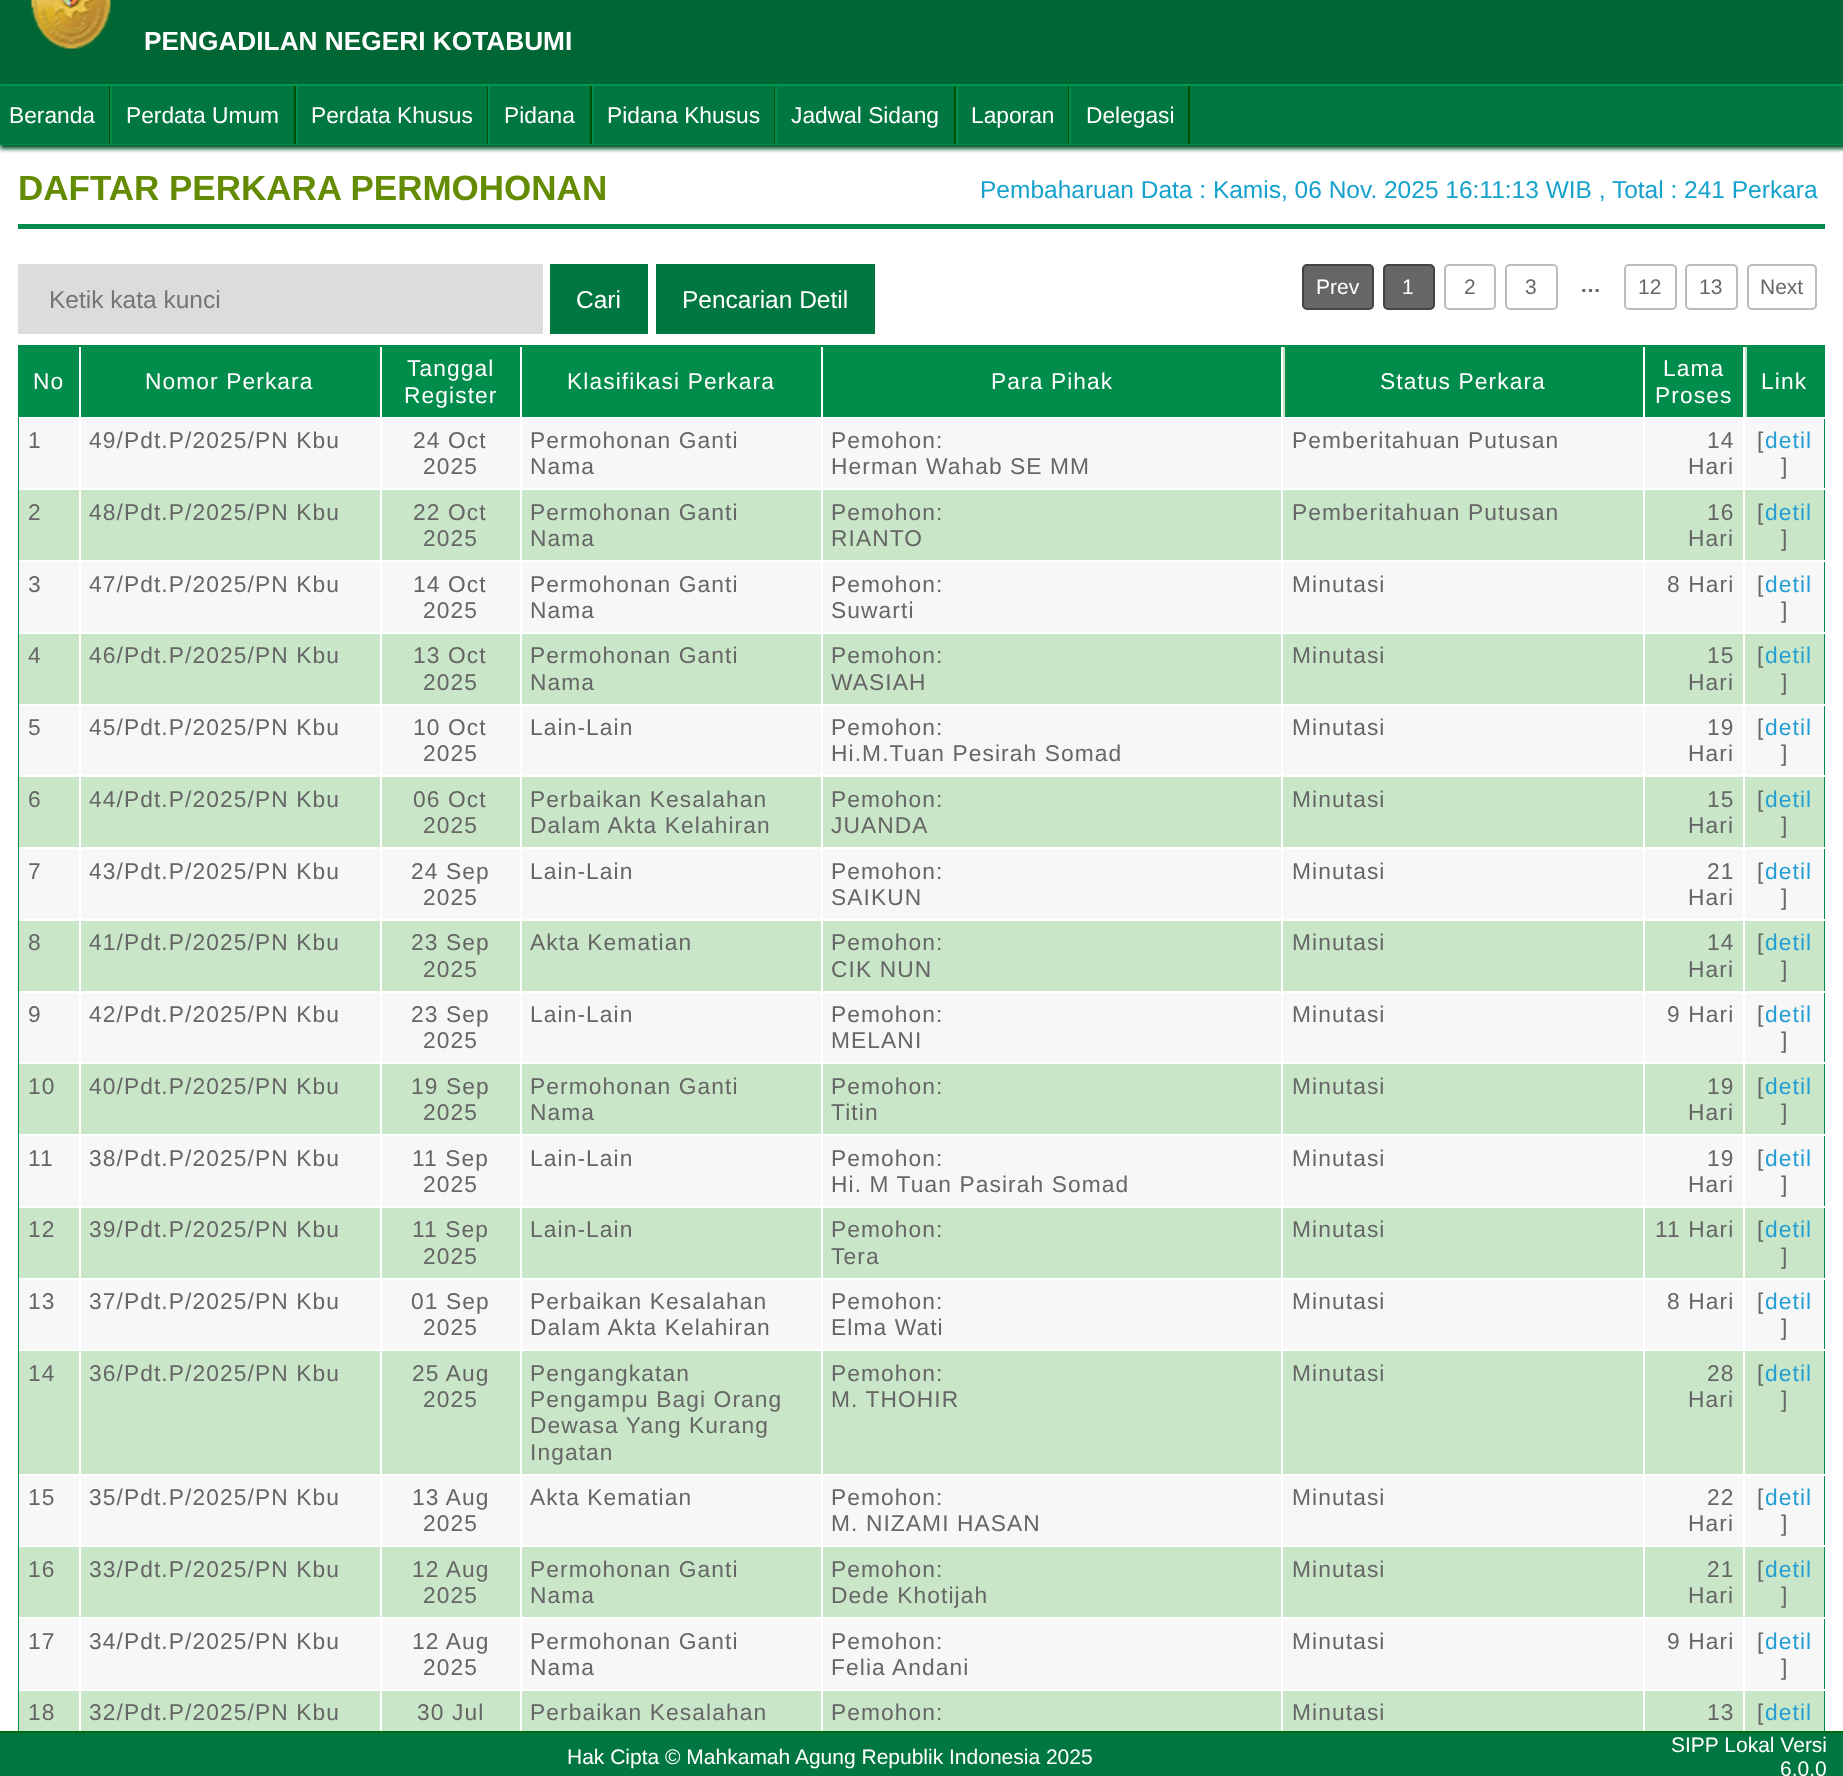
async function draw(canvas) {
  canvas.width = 1843;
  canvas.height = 1776;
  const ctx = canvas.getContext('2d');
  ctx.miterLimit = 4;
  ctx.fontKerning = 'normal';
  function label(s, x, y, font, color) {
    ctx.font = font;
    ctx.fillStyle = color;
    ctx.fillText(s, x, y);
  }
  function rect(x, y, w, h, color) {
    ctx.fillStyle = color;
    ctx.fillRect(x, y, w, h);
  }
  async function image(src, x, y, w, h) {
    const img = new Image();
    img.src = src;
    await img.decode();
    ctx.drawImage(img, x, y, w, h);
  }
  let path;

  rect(0, 0, 1843, 1776, '#fff');
  rect(0, 0, 1843, 84, '#006634');
  await image('assets/img1.png', 31, 0, 80, 49);
  label('PENGADILAN NEGERI KOTABUMI', 144, 50, 'bold 26.25px Liberation Sans', '#fff');
  ctx.fillStyle = '#00582f';
  ctx.filter = 'blur(2px)';
  ctx.beginPath();
  ctx.rect(0, 88, 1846, 61);
  ctx.fill();
  ctx.filter = 'none';
  rect(298, 86, 1545, 58, '#007640');
  ctx.fillStyle = '#009751';
  path = new Path2D('M0 84H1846L1843 86H2Z');
  ctx.fill(path);
  ctx.fillStyle = '#008d4c';
  path = new Path2D('M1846 145H0L2 144H1843Z');
  ctx.fill(path);
  rect(0, 84, 2, 61, '#008d4c');
  rect(0, 86, 109, 58, '#007640');
  rect(109, 86, 1, 58, '#045000');
  label('Beranda', 9, 123, '22.75px Liberation Sans', '#fff');
  rect(112, 86, 182, 58, '#007640');
  rect(294, 86, 2, 58, '#045000');
  rect(110, 86, 2, 58, '#008d4c');
  label('Perdata Umum', 126, 123, '22.75px Liberation Sans', '#fff');
  rect(487, 86, 1, 58, '#045000');
  rect(296, 86, 2, 58, '#008d4c');
  label('Perdata Khusus', 311, 123, '22.75px Liberation Sans', '#fff');
  rect(590, 86, 2, 58, '#045000');
  rect(488, 86, 2, 58, '#008d4c');
  label('Pidana', 504, 123, '22.75px Liberation Sans', '#fff');
  rect(774, 86, 1, 58, '#045000');
  rect(592, 86, 2, 58, '#008d4c');
  label('Pidana Khusus', 607, 123, '22.75px Liberation Sans', '#fff');
  rect(954, 86, 2, 58, '#045000');
  rect(775, 86, 2, 58, '#008d4c');
  label('Jadwal Sidang', 791, 123, '22.75px Liberation Sans', '#fff');
  rect(1068, 86, 1, 58, '#045000');
  rect(956, 86, 2, 58, '#008d4c');
  label('Laporan', 971, 123, '22.75px Liberation Sans', '#fff');
  rect(1188, 86, 2, 58, '#045000');
  rect(1069, 86, 2, 58, '#008d4c');
  label('Delegasi', 1086, 123, '22.75px Liberation Sans', '#fff');
  label('DAFTAR PERKARA PERMOHONAN', 18, 200, 'bold 35px Liberation Sans', '#648c03');
  label('Pembaharuan Data : Kamis, 06 Nov. 2025 16:11:13 WIB , Total : 241 Perkara', 980, 198, '24.5px Liberation Sans', '#17a2ce');
  rect(18, 224, 1807, 5, '#008c4b');
  ctx.fillStyle = '#666';
  ctx.beginPath();
  ctx.roundRect(1303, 265, 70, 44, 4);
  ctx.fill();
  ctx.strokeStyle = '#444';
  ctx.lineWidth = 2;
  ctx.stroke();
  label('Prev', 1316, 294, '21px Liberation Sans', '#fff');
  ctx.fillStyle = '#666';
  ctx.beginPath();
  ctx.roundRect(1384, 265, 50, 44, 4);
  ctx.fill();
  ctx.stroke();
  label('1', 1402, 294, '21px Liberation Sans', '#fff');
  ctx.beginPath();
  ctx.roundRect(1445, 265, 50, 44, 4);
  ctx.strokeStyle = '#bbb';
  ctx.stroke();
  label('2', 1464, 294, '21px Liberation Sans', '#666');
  ctx.beginPath();
  ctx.roundRect(1506, 265, 51, 44, 4);
  ctx.stroke();
  label('3', 1525, 294, '21px Liberation Sans', '#666');
  label('…', 1580, 292, 'bold 21px Liberation Sans', '#666');
  ctx.beginPath();
  ctx.roundRect(1625, 265, 51, 44, 4);
  ctx.stroke();
  label('12', 1638, 294, '21px Liberation Sans', '#666');
  ctx.beginPath();
  ctx.roundRect(1686, 265, 51, 44, 4);
  ctx.stroke();
  label('13', 1699, 294, '21px Liberation Sans', '#666');
  ctx.beginPath();
  ctx.roundRect(1748, 265, 68, 44, 4);
  ctx.stroke();
  label('Next', 1760, 294, '21px Liberation Sans', '#666');
  rect(18, 264, 525, 70, '#dedbdb');
  label('Ketik kata kunci', 49, 308, '24.5px Liberation Sans', '#757575');
  rect(550, 264, 98, 70, '#007640');
  label('Cari', 576, 308, '24.5px Liberation Sans', '#fff');
  rect(656, 264, 219, 70, '#007640');
  label('Pencarian Detil', 682, 308, '24.5px Liberation Sans', '#fff');
  ctx.strokeStyle = '#008c4b';
  ctx.strokeRect(19, 346, 1805, 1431);
  rect(1283, 347, 464, 70, '#c9e6c8');
  rect(20, 347, 59, 70, '#008c4b');
  rect(19, 417, 1, 2, '#fff');
  ctx.letterSpacing = '1.1px';
  label('No', 33, 389, '22.75px Liberation Sans', '#fff');
  rect(81, 347, 299, 70, '#008c4b');
  label('Nomor Perkara', 145, 389, '22.75px Liberation Sans', '#fff');
  rect(382, 347, 138, 70, '#008c4b');
  label('Tanggal', 407, 376, '22.75px Liberation Sans', '#fff');
  label('Register', 404, 403, '22.75px Liberation Sans', '#fff');
  rect(522, 347, 299, 70, '#008c4b');
  label('Klasifikasi Perkara', 567, 389, '22.75px Liberation Sans', '#fff');
  rect(823, 347, 458, 70, '#008c4b');
  label('Para Pihak', 991, 389, '22.75px Liberation Sans', '#fff');
  rect(1285, 347, 358, 70, '#008c4b');
  label('Status Perkara', 1380, 389, '22.75px Liberation Sans', '#fff');
  rect(1645, 347, 98, 70, '#008c4b');
  label('Lama', 1663, 376, '22.75px Liberation Sans', '#fff');
  label('Proses', 1655, 403, '22.75px Liberation Sans', '#fff');
  rect(1747, 347, 76, 70, '#008c4b');
  rect(1823, 417, 2, 2, '#fff');
  label('Link', 1761, 389, '22.75px Liberation Sans', '#fff');
  rect(19, 419, 1805, 69, '#f7f7f7');
  rect(19, 488, 1, 2, '#fff');
  label('1', 28, 448, '22.75px Liberation Sans', '#666');
  label('49/Pdt.P/2025/PN Kbu', 89, 448, '22.75px Liberation Sans', '#666');
  label('24 Oct', 413, 448, '22.75px Liberation Sans', '#666');
  label('2025', 423, 474, '22.75px Liberation Sans', '#666');
  label('Permohonan Ganti', 530, 448, '22.75px Liberation Sans', '#666');
  label('Nama', 530, 474, '22.75px Liberation Sans', '#666');
  label('Pemohon:', 831, 448, '22.75px Liberation Sans', '#666');
  label('Herman Wahab SE MM', 831, 474, '22.75px Liberation Sans', '#666');
  label('Pemberitahuan Putusan', 1292, 448, '22.75px Liberation Sans', '#666');
  label('14', 1707, 448, '22.75px Liberation Sans', '#666');
  label('Hari', 1688, 474, '22.75px Liberation Sans', '#666');
  rect(1823, 488, 2, 2, '#fff');
  label('[', 1757, 448, '22.75px Liberation Sans', '#666');
  label('detil', 1765, 448, '22.75px Liberation Sans', '#259fd3');
  label(']', 1781, 474, '22.75px Liberation Sans', '#666');
  rect(19, 490, 1805, 70, '#c9e6c8');
  rect(19, 560, 1, 2, '#fff');
  label('2', 28, 520, '22.75px Liberation Sans', '#666');
  label('48/Pdt.P/2025/PN Kbu', 89, 520, '22.75px Liberation Sans', '#666');
  label('22 Oct', 413, 520, '22.75px Liberation Sans', '#666');
  label('2025', 423, 546, '22.75px Liberation Sans', '#666');
  label('Permohonan Ganti', 530, 520, '22.75px Liberation Sans', '#666');
  label('Nama', 530, 546, '22.75px Liberation Sans', '#666');
  label('Pemohon:', 831, 520, '22.75px Liberation Sans', '#666');
  label('RIANTO', 831, 546, '22.75px Liberation Sans', '#666');
  label('Pemberitahuan Putusan', 1292, 520, '22.75px Liberation Sans', '#666');
  label('16', 1707, 520, '22.75px Liberation Sans', '#666');
  label('Hari', 1688, 546, '22.75px Liberation Sans', '#666');
  rect(1823, 560, 2, 2, '#fff');
  label('[', 1757, 520, '22.75px Liberation Sans', '#666');
  label('detil', 1765, 520, '22.75px Liberation Sans', '#259fd3');
  label(']', 1781, 546, '22.75px Liberation Sans', '#666');
  rect(19, 562, 1805, 70, '#f7f7f7');
  rect(19, 632, 1, 2, '#fff');
  label('3', 28, 592, '22.75px Liberation Sans', '#666');
  label('47/Pdt.P/2025/PN Kbu', 89, 592, '22.75px Liberation Sans', '#666');
  label('14 Oct', 413, 592, '22.75px Liberation Sans', '#666');
  label('2025', 423, 618, '22.75px Liberation Sans', '#666');
  label('Permohonan Ganti', 530, 592, '22.75px Liberation Sans', '#666');
  label('Nama', 530, 618, '22.75px Liberation Sans', '#666');
  label('Pemohon:', 831, 592, '22.75px Liberation Sans', '#666');
  label('Suwarti', 831, 618, '22.75px Liberation Sans', '#666');
  label('Minutasi', 1292, 592, '22.75px Liberation Sans', '#666');
  label('8 Hari', 1667, 592, '22.75px Liberation Sans', '#666');
  rect(1823, 632, 2, 2, '#fff');
  label('[', 1757, 592, '22.75px Liberation Sans', '#666');
  label('detil', 1765, 592, '22.75px Liberation Sans', '#259fd3');
  label(']', 1781, 618, '22.75px Liberation Sans', '#666');
  rect(19, 634, 1805, 70, '#c9e6c8');
  rect(19, 704, 1, 2, '#fff');
  label('4', 28, 663, '22.75px Liberation Sans', '#666');
  label('46/Pdt.P/2025/PN Kbu', 89, 663, '22.75px Liberation Sans', '#666');
  label('13 Oct', 413, 663, '22.75px Liberation Sans', '#666');
  label('2025', 423, 690, '22.75px Liberation Sans', '#666');
  label('Permohonan Ganti', 530, 663, '22.75px Liberation Sans', '#666');
  label('Nama', 530, 690, '22.75px Liberation Sans', '#666');
  label('Pemohon:', 831, 663, '22.75px Liberation Sans', '#666');
  label('WASIAH', 831, 690, '22.75px Liberation Sans', '#666');
  label('Minutasi', 1292, 663, '22.75px Liberation Sans', '#666');
  label('15', 1707, 663, '22.75px Liberation Sans', '#666');
  label('Hari', 1688, 690, '22.75px Liberation Sans', '#666');
  rect(1823, 704, 2, 2, '#fff');
  label('[', 1757, 663, '22.75px Liberation Sans', '#666');
  label('detil', 1765, 663, '22.75px Liberation Sans', '#259fd3');
  label(']', 1781, 690, '22.75px Liberation Sans', '#666');
  rect(19, 706, 1805, 69, '#f7f7f7');
  rect(19, 775, 1, 2, '#fff');
  label('5', 28, 735, '22.75px Liberation Sans', '#666');
  label('45/Pdt.P/2025/PN Kbu', 89, 735, '22.75px Liberation Sans', '#666');
  label('10 Oct', 413, 735, '22.75px Liberation Sans', '#666');
  label('2025', 423, 761, '22.75px Liberation Sans', '#666');
  label('Lain-Lain', 530, 735, '22.75px Liberation Sans', '#666');
  label('Pemohon:', 831, 735, '22.75px Liberation Sans', '#666');
  label('Hi.M.Tuan Pesirah Somad', 831, 761, '22.75px Liberation Sans', '#666');
  label('Minutasi', 1292, 735, '22.75px Liberation Sans', '#666');
  label('19', 1707, 735, '22.75px Liberation Sans', '#666');
  label('Hari', 1688, 761, '22.75px Liberation Sans', '#666');
  rect(1823, 775, 2, 2, '#fff');
  label('[', 1757, 735, '22.75px Liberation Sans', '#666');
  label('detil', 1765, 735, '22.75px Liberation Sans', '#259fd3');
  label(']', 1781, 761, '22.75px Liberation Sans', '#666');
  rect(19, 777, 1805, 70, '#c9e6c8');
  rect(19, 847, 1, 2, '#fff');
  label('6', 28, 807, '22.75px Liberation Sans', '#666');
  label('44/Pdt.P/2025/PN Kbu', 89, 807, '22.75px Liberation Sans', '#666');
  label('06 Oct', 413, 807, '22.75px Liberation Sans', '#666');
  label('2025', 423, 833, '22.75px Liberation Sans', '#666');
  label('Perbaikan Kesalahan', 530, 807, '22.75px Liberation Sans', '#666');
  label('Dalam Akta Kelahiran', 530, 833, '22.75px Liberation Sans', '#666');
  label('Pemohon:', 831, 807, '22.75px Liberation Sans', '#666');
  label('JUANDA', 831, 833, '22.75px Liberation Sans', '#666');
  label('Minutasi', 1292, 807, '22.75px Liberation Sans', '#666');
  label('15', 1707, 807, '22.75px Liberation Sans', '#666');
  label('Hari', 1688, 833, '22.75px Liberation Sans', '#666');
  rect(1823, 847, 2, 2, '#fff');
  label('[', 1757, 807, '22.75px Liberation Sans', '#666');
  label('detil', 1765, 807, '22.75px Liberation Sans', '#259fd3');
  label(']', 1781, 833, '22.75px Liberation Sans', '#666');
  rect(19, 849, 1805, 70, '#f7f7f7');
  rect(19, 919, 1, 2, '#fff');
  label('7', 28, 879, '22.75px Liberation Sans', '#666');
  label('43/Pdt.P/2025/PN Kbu', 89, 879, '22.75px Liberation Sans', '#666');
  label('24 Sep', 411, 879, '22.75px Liberation Sans', '#666');
  label('2025', 423, 905, '22.75px Liberation Sans', '#666');
  label('Lain-Lain', 530, 879, '22.75px Liberation Sans', '#666');
  label('Pemohon:', 831, 879, '22.75px Liberation Sans', '#666');
  label('SAIKUN', 831, 905, '22.75px Liberation Sans', '#666');
  label('Minutasi', 1292, 879, '22.75px Liberation Sans', '#666');
  label('21', 1707, 879, '22.75px Liberation Sans', '#666');
  label('Hari', 1688, 905, '22.75px Liberation Sans', '#666');
  rect(1823, 919, 2, 2, '#fff');
  label('[', 1757, 879, '22.75px Liberation Sans', '#666');
  label('detil', 1765, 879, '22.75px Liberation Sans', '#259fd3');
  label(']', 1781, 905, '22.75px Liberation Sans', '#666');
  rect(19, 921, 1805, 70, '#c9e6c8');
  rect(19, 991, 1, 2, '#fff');
  label('8', 28, 950, '22.75px Liberation Sans', '#666');
  label('41/Pdt.P/2025/PN Kbu', 89, 950, '22.75px Liberation Sans', '#666');
  label('23 Sep', 411, 950, '22.75px Liberation Sans', '#666');
  label('2025', 423, 977, '22.75px Liberation Sans', '#666');
  label('Akta Kematian', 530, 950, '22.75px Liberation Sans', '#666');
  label('Pemohon:', 831, 950, '22.75px Liberation Sans', '#666');
  label('CIK NUN', 831, 977, '22.75px Liberation Sans', '#666');
  label('Minutasi', 1292, 950, '22.75px Liberation Sans', '#666');
  label('14', 1707, 950, '22.75px Liberation Sans', '#666');
  label('Hari', 1688, 977, '22.75px Liberation Sans', '#666');
  rect(1823, 991, 2, 2, '#fff');
  label('[', 1757, 950, '22.75px Liberation Sans', '#666');
  label('detil', 1765, 950, '22.75px Liberation Sans', '#259fd3');
  label(']', 1781, 977, '22.75px Liberation Sans', '#666');
  rect(19, 993, 1805, 69, '#f7f7f7');
  rect(19, 1062, 1, 2, '#fff');
  label('9', 28, 1022, '22.75px Liberation Sans', '#666');
  label('42/Pdt.P/2025/PN Kbu', 89, 1022, '22.75px Liberation Sans', '#666');
  label('23 Sep', 411, 1022, '22.75px Liberation Sans', '#666');
  label('2025', 423, 1048, '22.75px Liberation Sans', '#666');
  label('Lain-Lain', 530, 1022, '22.75px Liberation Sans', '#666');
  label('Pemohon:', 831, 1022, '22.75px Liberation Sans', '#666');
  label('MELANI', 831, 1048, '22.75px Liberation Sans', '#666');
  label('Minutasi', 1292, 1022, '22.75px Liberation Sans', '#666');
  label('9 Hari', 1667, 1022, '22.75px Liberation Sans', '#666');
  rect(1823, 1062, 2, 2, '#fff');
  label('[', 1757, 1022, '22.75px Liberation Sans', '#666');
  label('detil', 1765, 1022, '22.75px Liberation Sans', '#259fd3');
  label(']', 1781, 1048, '22.75px Liberation Sans', '#666');
  rect(19, 1064, 1805, 70, '#c9e6c8');
  rect(19, 1134, 1, 2, '#fff');
  label('10', 28, 1094, '22.75px Liberation Sans', '#666');
  label('40/Pdt.P/2025/PN Kbu', 89, 1094, '22.75px Liberation Sans', '#666');
  label('19 Sep', 411, 1094, '22.75px Liberation Sans', '#666');
  label('2025', 423, 1120, '22.75px Liberation Sans', '#666');
  label('Permohonan Ganti', 530, 1094, '22.75px Liberation Sans', '#666');
  label('Nama', 530, 1120, '22.75px Liberation Sans', '#666');
  label('Pemohon:', 831, 1094, '22.75px Liberation Sans', '#666');
  label('Titin', 831, 1120, '22.75px Liberation Sans', '#666');
  label('Minutasi', 1292, 1094, '22.75px Liberation Sans', '#666');
  label('19', 1707, 1094, '22.75px Liberation Sans', '#666');
  label('Hari', 1688, 1120, '22.75px Liberation Sans', '#666');
  rect(1823, 1134, 2, 2, '#fff');
  label('[', 1757, 1094, '22.75px Liberation Sans', '#666');
  label('detil', 1765, 1094, '22.75px Liberation Sans', '#259fd3');
  label(']', 1781, 1120, '22.75px Liberation Sans', '#666');
  rect(19, 1136, 1805, 70, '#f7f7f7');
  rect(19, 1206, 1, 2, '#fff');
  label('11', 28, 1166, '22.75px Liberation Sans', '#666');
  label('38/Pdt.P/2025/PN Kbu', 89, 1166, '22.75px Liberation Sans', '#666');
  label('11 Sep', 412, 1166, '22.75px Liberation Sans', '#666');
  label('2025', 423, 1192, '22.75px Liberation Sans', '#666');
  label('Lain-Lain', 530, 1166, '22.75px Liberation Sans', '#666');
  label('Pemohon:', 831, 1166, '22.75px Liberation Sans', '#666');
  label('Hi. M Tuan Pasirah Somad', 831, 1192, '22.75px Liberation Sans', '#666');
  label('Minutasi', 1292, 1166, '22.75px Liberation Sans', '#666');
  label('19', 1707, 1166, '22.75px Liberation Sans', '#666');
  label('Hari', 1688, 1192, '22.75px Liberation Sans', '#666');
  rect(1823, 1206, 2, 2, '#fff');
  label('[', 1757, 1166, '22.75px Liberation Sans', '#666');
  label('detil', 1765, 1166, '22.75px Liberation Sans', '#259fd3');
  label(']', 1781, 1192, '22.75px Liberation Sans', '#666');
  rect(19, 1208, 1805, 70, '#c9e6c8');
  rect(19, 1278, 1, 2, '#fff');
  label('12', 28, 1237, '22.75px Liberation Sans', '#666');
  label('39/Pdt.P/2025/PN Kbu', 89, 1237, '22.75px Liberation Sans', '#666');
  label('11 Sep', 412, 1237, '22.75px Liberation Sans', '#666');
  label('2025', 423, 1264, '22.75px Liberation Sans', '#666');
  label('Lain-Lain', 530, 1237, '22.75px Liberation Sans', '#666');
  label('Pemohon:', 831, 1237, '22.75px Liberation Sans', '#666');
  label('Tera', 831, 1264, '22.75px Liberation Sans', '#666');
  label('Minutasi', 1292, 1237, '22.75px Liberation Sans', '#666');
  label('11 Hari', 1655, 1237, '22.75px Liberation Sans', '#666');
  rect(1823, 1278, 2, 2, '#fff');
  label('[', 1757, 1237, '22.75px Liberation Sans', '#666');
  label('detil', 1765, 1237, '22.75px Liberation Sans', '#259fd3');
  label(']', 1781, 1264, '22.75px Liberation Sans', '#666');
  rect(19, 1280, 1805, 69, '#f7f7f7');
  rect(19, 1349, 1, 2, '#fff');
  label('13', 28, 1309, '22.75px Liberation Sans', '#666');
  label('37/Pdt.P/2025/PN Kbu', 89, 1309, '22.75px Liberation Sans', '#666');
  label('01 Sep', 411, 1309, '22.75px Liberation Sans', '#666');
  label('2025', 423, 1335, '22.75px Liberation Sans', '#666');
  label('Perbaikan Kesalahan', 530, 1309, '22.75px Liberation Sans', '#666');
  label('Dalam Akta Kelahiran', 530, 1335, '22.75px Liberation Sans', '#666');
  label('Pemohon:', 831, 1309, '22.75px Liberation Sans', '#666');
  label('Elma Wati', 831, 1335, '22.75px Liberation Sans', '#666');
  label('Minutasi', 1292, 1309, '22.75px Liberation Sans', '#666');
  label('8 Hari', 1667, 1309, '22.75px Liberation Sans', '#666');
  rect(1823, 1349, 2, 2, '#fff');
  label('[', 1757, 1309, '22.75px Liberation Sans', '#666');
  label('detil', 1765, 1309, '22.75px Liberation Sans', '#259fd3');
  label(']', 1781, 1335, '22.75px Liberation Sans', '#666');
  rect(19, 1351, 1805, 123, '#c9e6c8');
  rect(19, 1474, 1, 2, '#fff');
  label('14', 28, 1381, '22.75px Liberation Sans', '#666');
  label('36/Pdt.P/2025/PN Kbu', 89, 1381, '22.75px Liberation Sans', '#666');
  label('25 Aug', 412, 1381, '22.75px Liberation Sans', '#666');
  label('2025', 423, 1407, '22.75px Liberation Sans', '#666');
  label('Pengangkatan', 530, 1381, '22.75px Liberation Sans', '#666');
  label('Pengampu Bagi Orang', 530, 1407, '22.75px Liberation Sans', '#666');
  label('Dewasa Yang Kurang', 530, 1433, '22.75px Liberation Sans', '#666');
  label('Ingatan', 530, 1460, '22.75px Liberation Sans', '#666');
  label('Pemohon:', 831, 1381, '22.75px Liberation Sans', '#666');
  label('M. THOHIR', 831, 1407, '22.75px Liberation Sans', '#666');
  label('Minutasi', 1292, 1381, '22.75px Liberation Sans', '#666');
  label('28', 1707, 1381, '22.75px Liberation Sans', '#666');
  label('Hari', 1688, 1407, '22.75px Liberation Sans', '#666');
  rect(1823, 1474, 2, 2, '#fff');
  label('[', 1757, 1381, '22.75px Liberation Sans', '#666');
  label('detil', 1765, 1381, '22.75px Liberation Sans', '#259fd3');
  label(']', 1781, 1407, '22.75px Liberation Sans', '#666');
  rect(19, 1476, 1805, 69, '#f7f7f7');
  rect(19, 1545, 1, 2, '#fff');
  label('15', 28, 1505, '22.75px Liberation Sans', '#666');
  label('35/Pdt.P/2025/PN Kbu', 89, 1505, '22.75px Liberation Sans', '#666');
  label('13 Aug', 412, 1505, '22.75px Liberation Sans', '#666');
  label('2025', 423, 1531, '22.75px Liberation Sans', '#666');
  label('Akta Kematian', 530, 1505, '22.75px Liberation Sans', '#666');
  label('Pemohon:', 831, 1505, '22.75px Liberation Sans', '#666');
  label('M. NIZAMI HASAN', 831, 1531, '22.75px Liberation Sans', '#666');
  label('Minutasi', 1292, 1505, '22.75px Liberation Sans', '#666');
  label('22', 1707, 1505, '22.75px Liberation Sans', '#666');
  label('Hari', 1688, 1531, '22.75px Liberation Sans', '#666');
  rect(1823, 1545, 2, 2, '#fff');
  label('[', 1757, 1505, '22.75px Liberation Sans', '#666');
  label('detil', 1765, 1505, '22.75px Liberation Sans', '#259fd3');
  label(']', 1781, 1531, '22.75px Liberation Sans', '#666');
  rect(19, 1547, 1805, 70, '#c9e6c8');
  rect(19, 1617, 1, 2, '#fff');
  label('16', 28, 1577, '22.75px Liberation Sans', '#666');
  label('33/Pdt.P/2025/PN Kbu', 89, 1577, '22.75px Liberation Sans', '#666');
  label('12 Aug', 412, 1577, '22.75px Liberation Sans', '#666');
  label('2025', 423, 1603, '22.75px Liberation Sans', '#666');
  label('Permohonan Ganti', 530, 1577, '22.75px Liberation Sans', '#666');
  label('Nama', 530, 1603, '22.75px Liberation Sans', '#666');
  label('Pemohon:', 831, 1577, '22.75px Liberation Sans', '#666');
  label('Dede Khotijah', 831, 1603, '22.75px Liberation Sans', '#666');
  label('Minutasi', 1292, 1577, '22.75px Liberation Sans', '#666');
  label('21', 1707, 1577, '22.75px Liberation Sans', '#666');
  label('Hari', 1688, 1603, '22.75px Liberation Sans', '#666');
  rect(1823, 1617, 2, 2, '#fff');
  label('[', 1757, 1577, '22.75px Liberation Sans', '#666');
  label('detil', 1765, 1577, '22.75px Liberation Sans', '#259fd3');
  label(']', 1781, 1603, '22.75px Liberation Sans', '#666');
  rect(19, 1619, 1805, 70, '#f7f7f7');
  rect(19, 1689, 1, 2, '#fff');
  label('17', 28, 1649, '22.75px Liberation Sans', '#666');
  label('34/Pdt.P/2025/PN Kbu', 89, 1649, '22.75px Liberation Sans', '#666');
  label('12 Aug', 412, 1649, '22.75px Liberation Sans', '#666');
  label('2025', 423, 1675, '22.75px Liberation Sans', '#666');
  label('Permohonan Ganti', 530, 1649, '22.75px Liberation Sans', '#666');
  label('Nama', 530, 1675, '22.75px Liberation Sans', '#666');
  label('Pemohon:', 831, 1649, '22.75px Liberation Sans', '#666');
  label('Felia Andani', 831, 1675, '22.75px Liberation Sans', '#666');
  label('Minutasi', 1292, 1649, '22.75px Liberation Sans', '#666');
  label('9 Hari', 1667, 1649, '22.75px Liberation Sans', '#666');
  rect(1823, 1689, 2, 2, '#fff');
  label('[', 1757, 1649, '22.75px Liberation Sans', '#666');
  label('detil', 1765, 1649, '22.75px Liberation Sans', '#259fd3');
  label(']', 1781, 1675, '22.75px Liberation Sans', '#666');
  rect(19, 1691, 1805, 40, '#c9e6c8');
  rect(79, 417, 2, 1314, '#fff');
  label('18', 28, 1720, '22.75px Liberation Sans', '#666');
  rect(380, 417, 2, 1314, '#fff');
  label('32/Pdt.P/2025/PN Kbu', 89, 1720, '22.75px Liberation Sans', '#666');
  rect(520, 417, 2, 1314, '#fff');
  label('30 Jul', 417, 1720, '22.75px Liberation Sans', '#666');
  rect(821, 417, 2, 1314, '#fff');
  label('Perbaikan Kesalahan', 530, 1720, '22.75px Liberation Sans', '#666');
  rect(1281, 417, 2, 1314, '#fff');
  label('Pemohon:', 831, 1720, '22.75px Liberation Sans', '#666');
  rect(1643, 347, 2, 1384, '#fff');
  label('Minutasi', 1292, 1720, '22.75px Liberation Sans', '#666');
  rect(1743, 347, 2, 1384, '#fff');
  label('13', 1707, 1720, '22.75px Liberation Sans', '#666');
  label('[', 1757, 1720, '22.75px Liberation Sans', '#666');
  label('detil', 1765, 1720, '22.75px Liberation Sans', '#259fd3');
  rect(0, 1733, 1843, 43, '#007640');
  rect(0, 1731, 1843, 2, '#006a14');
  ctx.letterSpacing = '0px';
  label('Hak Cipta © Mahkamah Agung Republik Indonesia 2025', 567, 1764, '21px Liberation Sans', '#fff');
  label('SIPP Lokal Versi', 1671, 1752, '21px Liberation Sans', '#fff');
  label('6.0.0', 1780, 1776, '21px Liberation Sans', '#fff');
}

draw(document.querySelector('canvas'));
